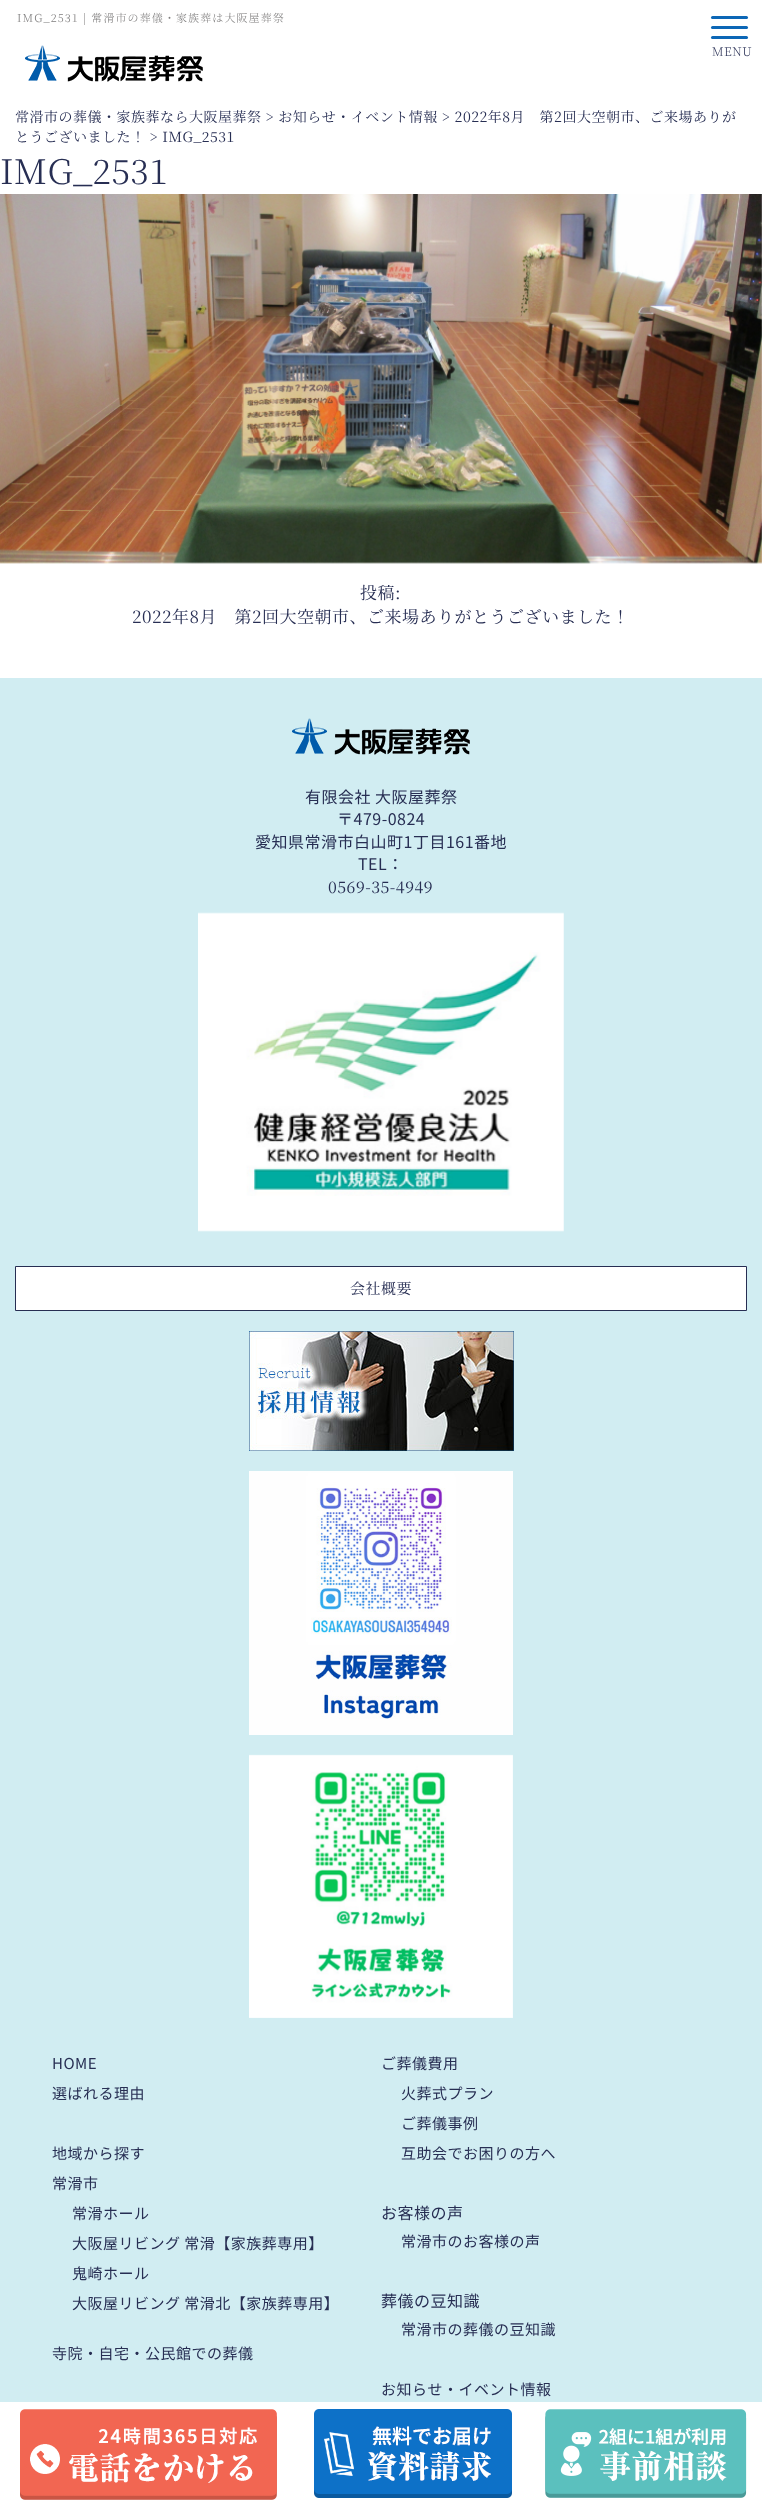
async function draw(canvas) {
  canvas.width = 762;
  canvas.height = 2508;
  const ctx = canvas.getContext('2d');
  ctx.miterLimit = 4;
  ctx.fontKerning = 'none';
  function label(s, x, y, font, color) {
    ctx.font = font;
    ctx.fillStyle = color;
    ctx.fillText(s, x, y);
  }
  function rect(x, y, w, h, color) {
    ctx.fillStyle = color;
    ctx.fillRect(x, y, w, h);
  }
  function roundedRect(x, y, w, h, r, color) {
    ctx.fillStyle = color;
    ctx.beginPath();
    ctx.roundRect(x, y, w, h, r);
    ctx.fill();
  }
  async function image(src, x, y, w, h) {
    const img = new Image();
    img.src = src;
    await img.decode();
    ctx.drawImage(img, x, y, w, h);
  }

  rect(0, 0, 762, 2508, '#fff');
  ctx.letterSpacing = '1.1px';
  label('IMG_2531 | 常滑市の葬儀・家族葬は大阪屋葬祭', 17, 22, '300 11px Noto Serif JP', '#7f7e7e');
  await image('assets/img1.png', 25, 45, 178, 37);
  roundedRect(711, 16, 37, 3, 1.5, '#0c67b6');
  roundedRect(711, 26, 37, 3, 1.5, '#0c67b6');
  roundedRect(711, 36, 37, 3, 1.5, '#0c67b6');
  ctx.letterSpacing = '0.5px';
  label('MENU', 712, 56, '200 12px Noto Serif JP', '#272e53');
  label('常滑市の葬儀・家族葬なら大阪屋葬祭 > お知らせ・イベント情報 > 2022年8月　第2回大空朝市、ご来場ありが', 15, 122, '14px Noto Serif JP', '#272e53');
  label('とうございました！ > IMG_2531', 15, 142, '14px Noto Serif JP', '#272e53');
  label('IMG_2531', 0, 184, '300 34px Noto Serif JP', '#272e53');
  await image('assets/img2.png', 0, 194, 762, 370);
  label('投稿:', 360, 599, '17px Noto Serif JP', '#272e53');
  label('2022年8月　第2回大空朝市、ご来場ありがとうございました！', 132, 623, '17px Noto Serif JP', '#272e53');
  rect(0, 678, 762, 1724, '#d1edf2');
  await image('assets/img3.png', 292, 718, 178, 37);
  label('有限会社 大阪屋葬祭', 305, 803, '16px Noto Sans JP', '#272e53');
  label('〒479-0824', 337, 825, '16px Noto Sans JP', '#272e53');
  label('愛知県常滑市白山町1丁目161番地', 255, 848, '16px Noto Sans JP', '#272e53');
  label('TEL：', 358, 870, '16px Noto Sans JP', '#272e53');
  label('0569-35-4949', 328, 893, '16px Noto Serif JP', '#272e53');
  await image('assets/img4.png', 198, 912, 366, 320);
  ctx.fillStyle = '#fff';
  ctx.beginPath();
  ctx.rect(15.5, 1266.5, 731, 44);
  ctx.fill();
  ctx.strokeStyle = '#272e53';
  ctx.stroke();
  label('会社概要', 350, 1294, '15px Noto Serif JP', '#272e53');
  await image('assets/img5.png', 249, 1331, 265, 120);
  await image('assets/img6.png', 249, 1471, 264, 264);
  await image('assets/img7.png', 249, 1754, 264, 264);
  label('HOME', 52, 2069, '15px Noto Sans JP', '#272e53');
  label('選ばれる理由', 52, 2099, '15px Noto Sans JP', '#272e53');
  label('地域から探す', 52, 2159, '15px Noto Sans JP', '#272e53');
  label('常滑市', 52, 2189, '15px Noto Sans JP', '#272e53');
  label('常滑ホール', 72, 2219, '15px Noto Sans JP', '#272e53');
  label('大阪屋リビング 常滑【家族葬専用】', 72, 2249, '15px Noto Sans JP', '#272e53');
  label('鬼崎ホール', 72, 2279, '15px Noto Sans JP', '#272e53');
  label('大阪屋リビング 常滑北【家族葬専用】', 72, 2309, '15px Noto Sans JP', '#272e53');
  label('寺院・自宅・公民館での葬儀', 52, 2359, '15px Noto Sans JP', '#272e53');
  label('ご葬儀費用', 381, 2069, '15px Noto Sans JP', '#272e53');
  label('火葬式プラン', 401, 2099, '15px Noto Sans JP', '#272e53');
  label('ご葬儀事例', 401, 2129, '15px Noto Sans JP', '#272e53');
  label('互助会でお困りの方へ', 401, 2159, '15px Noto Sans JP', '#272e53');
  label('お客様の声', 381, 2219, '16px Noto Sans JP', '#272e53');
  label('常滑市のお客様の声', 401, 2247, '15px Noto Sans JP', '#272e53');
  label('葬儀の豆知識', 381, 2307, '16px Noto Sans JP', '#272e53');
  label('常滑市の葬儀の豆知識', 401, 2335, '15px Noto Sans JP', '#272e53');
  label('お知らせ・イベント情報', 381, 2395, '15px Noto Sans JP', '#272e53');
  await image('assets/img8.png', 20, 2409, 257, 91);
  await image('assets/img9.png', 314, 2409, 198, 89);
  await image('assets/img10.png', 545, 2409, 202, 89);
}

draw(document.querySelector('canvas'));
